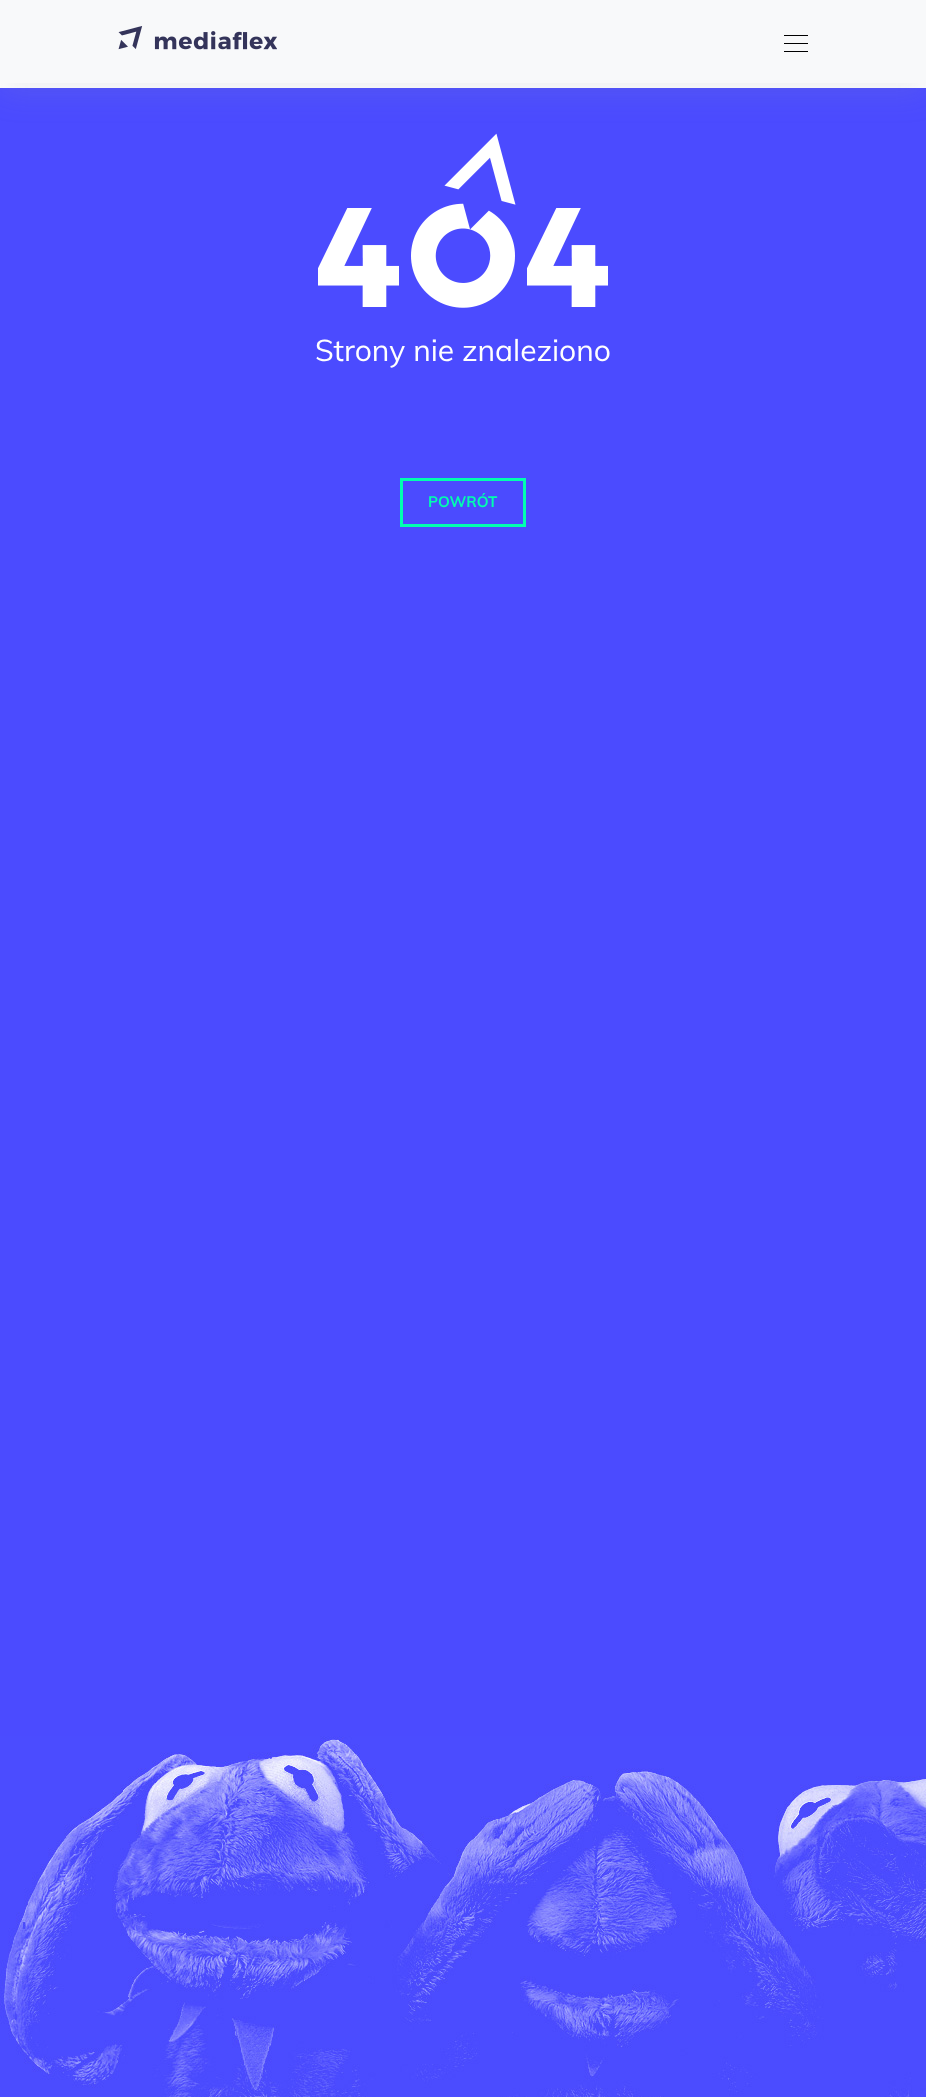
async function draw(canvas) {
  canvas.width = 926;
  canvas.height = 2097;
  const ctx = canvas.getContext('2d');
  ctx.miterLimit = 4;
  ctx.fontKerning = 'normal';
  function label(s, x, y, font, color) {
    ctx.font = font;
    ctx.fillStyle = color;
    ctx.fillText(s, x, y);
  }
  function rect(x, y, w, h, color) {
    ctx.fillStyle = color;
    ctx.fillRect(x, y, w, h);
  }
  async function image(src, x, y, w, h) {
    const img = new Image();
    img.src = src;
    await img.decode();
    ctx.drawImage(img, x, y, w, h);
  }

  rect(0, 0, 926, 2097, '#fff');
  rect(0, 88, 926, 1648, '#4b4bff');
  await image('assets/img2.png', 318, 133, 290, 175);
  ctx.fillStyle = '#8a9ba526';
  ctx.filter = 'blur(15px)';
  ctx.beginPath();
  ctx.rect(0, 10, 926, 83);
  ctx.fill();
  ctx.filter = 'none';
  rect(0, 0, 926, 83, '#f8f9fa');
  await image('assets/img1.png', 118, 26, 159, 24);
  rect(784, 51, 24, 1, '#000');
  rect(784, 35, 24, 1, '#000');
  rect(784, 43, 24, 1, '#000');
  label('Strony nie znaleziono', 315, 361, '30px Muli', '#fff');
  ctx.strokeStyle = '#00ffaf';
  ctx.lineWidth = 3;
  ctx.strokeRect(401.5, 479.5, 123, 46);
  label('POWRÓT', 428, 507, 'bold 15px Muli', '#00ffaf');
  await image('assets/img3.png', 0, 1736, 926, 361);
}

draw(document.querySelector('canvas'));
